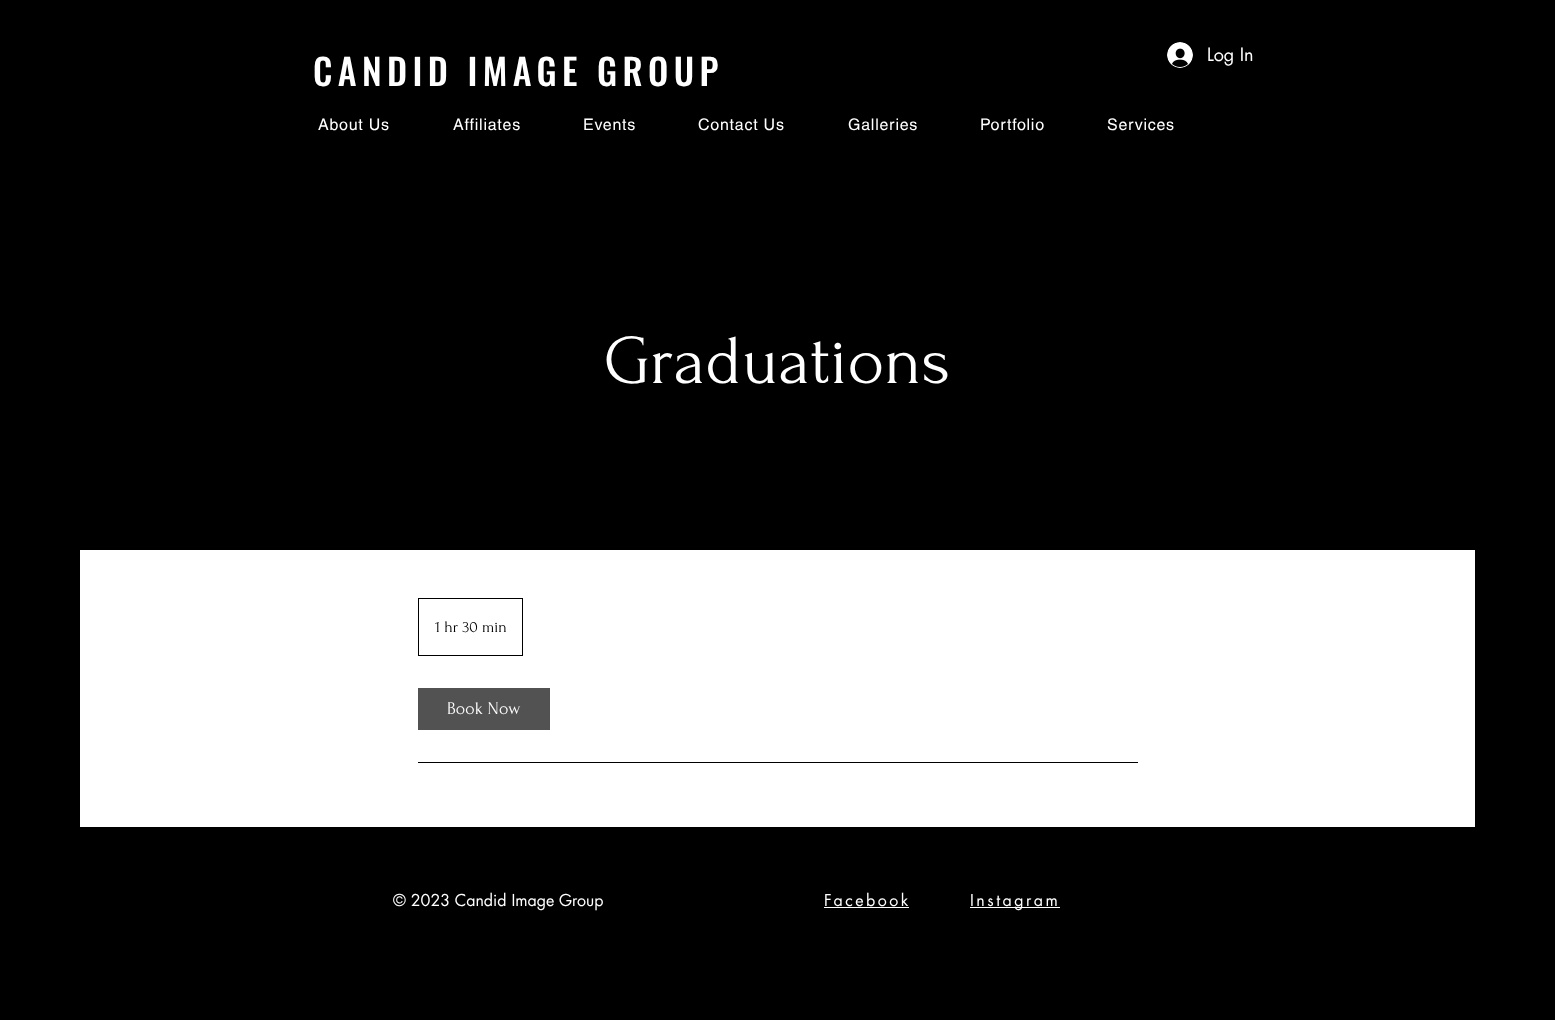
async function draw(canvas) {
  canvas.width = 1555;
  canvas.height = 1020;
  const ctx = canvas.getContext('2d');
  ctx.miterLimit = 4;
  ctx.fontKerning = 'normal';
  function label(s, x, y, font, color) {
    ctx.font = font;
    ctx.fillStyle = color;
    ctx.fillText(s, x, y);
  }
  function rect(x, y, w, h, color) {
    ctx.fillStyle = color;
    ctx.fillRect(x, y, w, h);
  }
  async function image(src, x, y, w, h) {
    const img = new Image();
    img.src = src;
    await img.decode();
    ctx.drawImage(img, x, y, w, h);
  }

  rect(0, 0, 1555, 1020, '#000');
  ctx.letterSpacing = '5.4px';
  label('CANDID IMAGE GROUP', 313, 86, '500 36px Oswald', '#fff');
  await image('assets/img1.png', 1167, 42, 26, 26);
  ctx.letterSpacing = '0px';
  label('Log In', 1207, 61, '18px futura', '#fff');
  ctx.letterSpacing = '0.75px';
  label('About Us', 318, 130, '16px helvetica', '#fff');
  label('Affiliates', 453, 130, '16px helvetica', '#fff');
  label('Events', 583, 130, '16px helvetica', '#fff');
  label('Contact Us', 698, 130, '16px helvetica', '#fff');
  label('Galleries', 848, 130, '16px helvetica', '#fff');
  label('Portfolio', 980, 130, '16px helvetica', '#fff');
  label('Services', 1107, 130, '16px helvetica', '#fff');
  ctx.letterSpacing = '0px';
  label('Graduations', 604, 383, '70px Forum', '#fff');
  rect(80, 550, 1395, 277, '#fff');
  ctx.strokeStyle = '#000';
  ctx.strokeRect(418.5, 598.5, 104, 57);
  label('1 hr 30 min', 435, 632, '16px Forum', '#000');
  rect(418, 688, 132, 42, '#525252');
  label('Book Now', 447, 714, '18px Forum', '#fff');
  rect(418, 762, 720, 1, '#000');
  label('© 2023 Candid Image Group', 393, 906, '16px futura', '#fff');
  ctx.letterSpacing = '2.5px';
  label('Facebook', 824, 906, '16px futura', '#fff');
  rect(824, 907, 85, 1, '#fff');
  rect(970, 907, 90, 1, '#fff');
  label('Instagram', 970, 906, '16px futura', '#fff');
}

draw(document.querySelector('canvas'));
